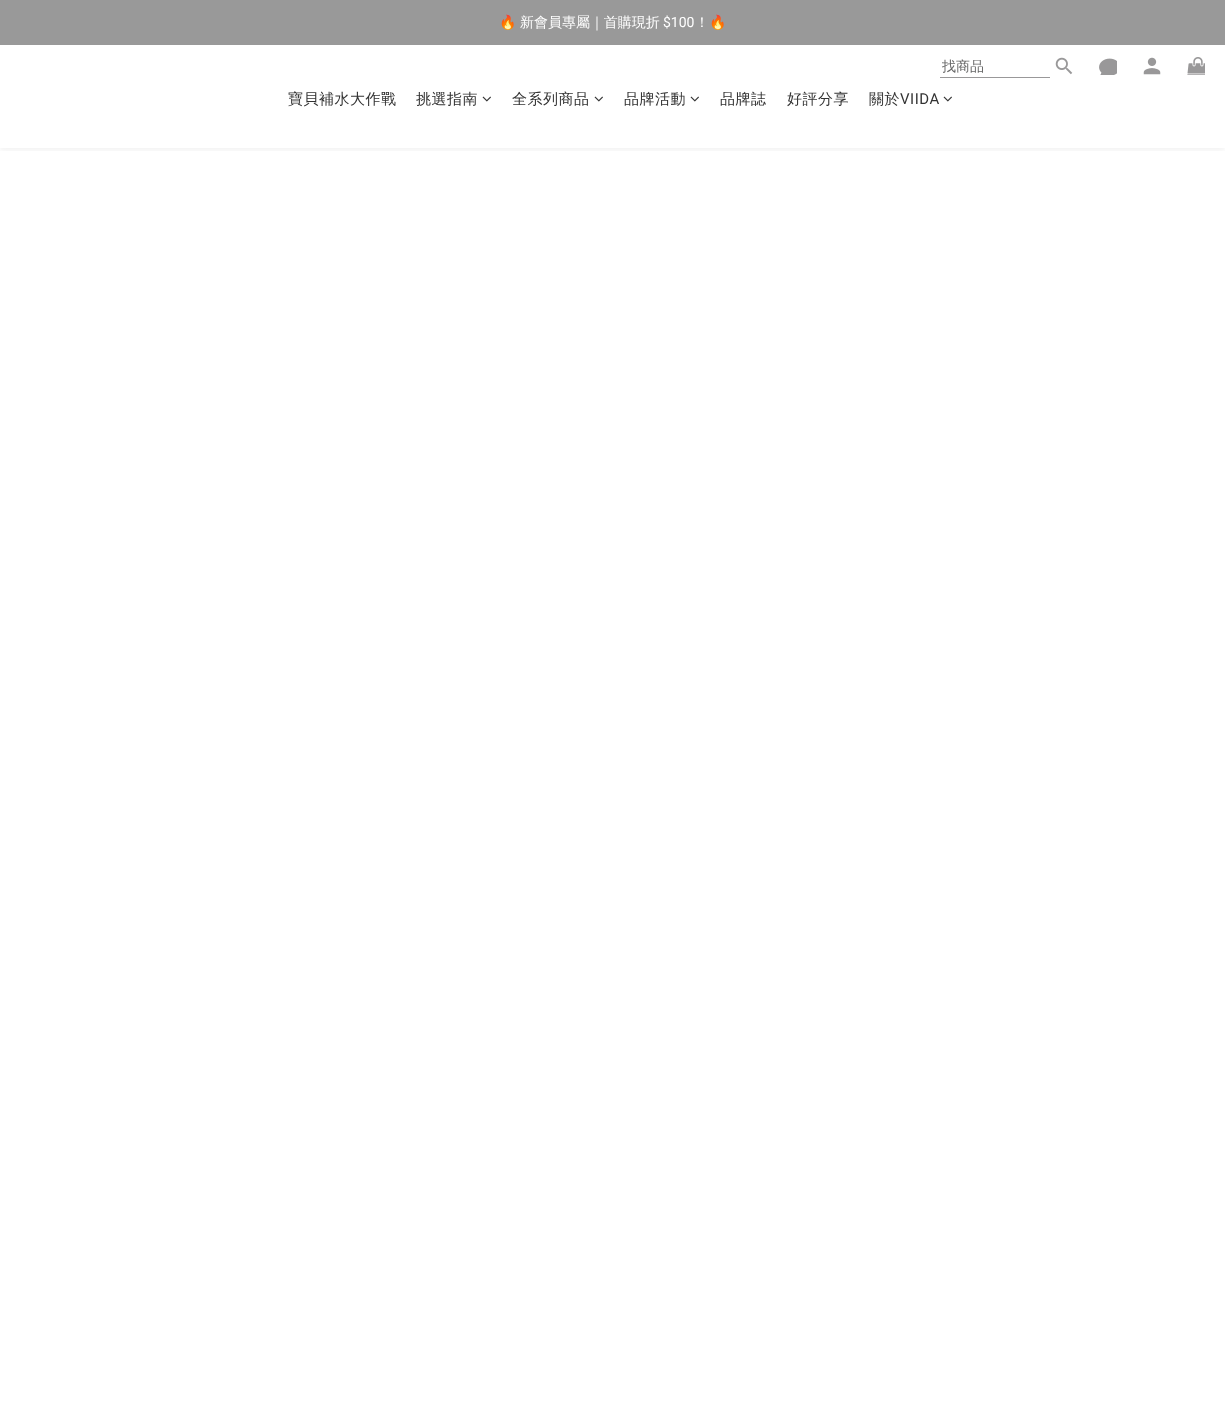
async function draw(canvas) {
  canvas.width = 1225;
  canvas.height = 1423;
  const ctx = canvas.getContext('2d');
  ctx.miterLimit = 4;
  ctx.fontKerning = 'normal';
  function label(s, x, y, font, color) {
    ctx.font = font;
    ctx.fillStyle = color;
    ctx.fillText(s, x, y);
  }
  function rect(x, y, w, h, color) {
    ctx.fillStyle = color;
    ctx.fillRect(x, y, w, h);
  }
  async function image(src, x, y, w, h) {
    const img = new Image();
    img.src = src;
    await img.decode();
    ctx.drawImage(img, x, y, w, h);
  }

  rect(0, 0, 1225, 1423, '#fff');
  rect(0, 0, 1225, 45, '#999');
  label('🔥', 499, 27, '14px Noto Color Emoji', '#fff');
  label('新會員專屬｜首購現折', 520, 27, '500 14px WenQuanYi Zen Hei', '#fff');
  label('$100', 663, 27, '14px Roboto', '#fff');
  label('！', 695, 27, '500 14px WenQuanYi Zen Hei', '#fff');
  label('🔥', 709, 27, '14px Noto Color Emoji', '#fff');
  ctx.save();
  ctx.beginPath();
  ctx.rect(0, 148, 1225, 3);
  ctx.clip();
  ctx.fillStyle = '#0000000f';
  ctx.filter = 'blur(3px)';
  ctx.beginPath();
  ctx.rect(0, 47, 1225, 103);
  ctx.fill();
  ctx.filter = 'none';
  ctx.restore();
  rect(940, 77, 110, 1, '#999899');
  ctx.save();
  ctx.beginPath();
  ctx.rect(942, 58, 106, 18);
  ctx.clip();
  label('找商品', 942, 71, '500 14px WenQuanYi Zen Hei', '#666');
  ctx.restore();
  await image('assets/img1.png', 1055, 57, 18, 18);
  await image('assets/img2.png', 1099, 58, 18, 17);
  await image('assets/img3.png', 1143, 57, 18, 18);
  await image('assets/img4.png', 1187, 57, 18, 18);
  ctx.letterSpacing = '0.5px';
  label('寶貝補水大作戰', 288, 104, '500 15px WenQuanYi Zen Hei', '#333');
  label('挑選指南', 416, 104, '500 15px WenQuanYi Zen Hei', '#333');
  await image('assets/img5.png', 482, 96, 9, 6);
  label('全系列商品', 512, 104, '500 15px WenQuanYi Zen Hei', '#333');
  await image('assets/img5.png', 594, 96, 9, 6);
  label('品牌活動', 624, 104, '500 15px WenQuanYi Zen Hei', '#333');
  await image('assets/img5.png', 690, 96, 9, 6);
  label('品牌誌', 720, 104, '500 15px WenQuanYi Zen Hei', '#333');
  label('好評分享', 787, 104, '500 15px WenQuanYi Zen Hei', '#333');
  label('關於', 869, 104, '500 15px WenQuanYi Zen Hei', '#333');
  label('VIIDA', 900, 104, '15px Roboto', '#333');
  await image('assets/img5.png', 943, 96, 9, 6);
}

draw(document.querySelector('canvas'));
